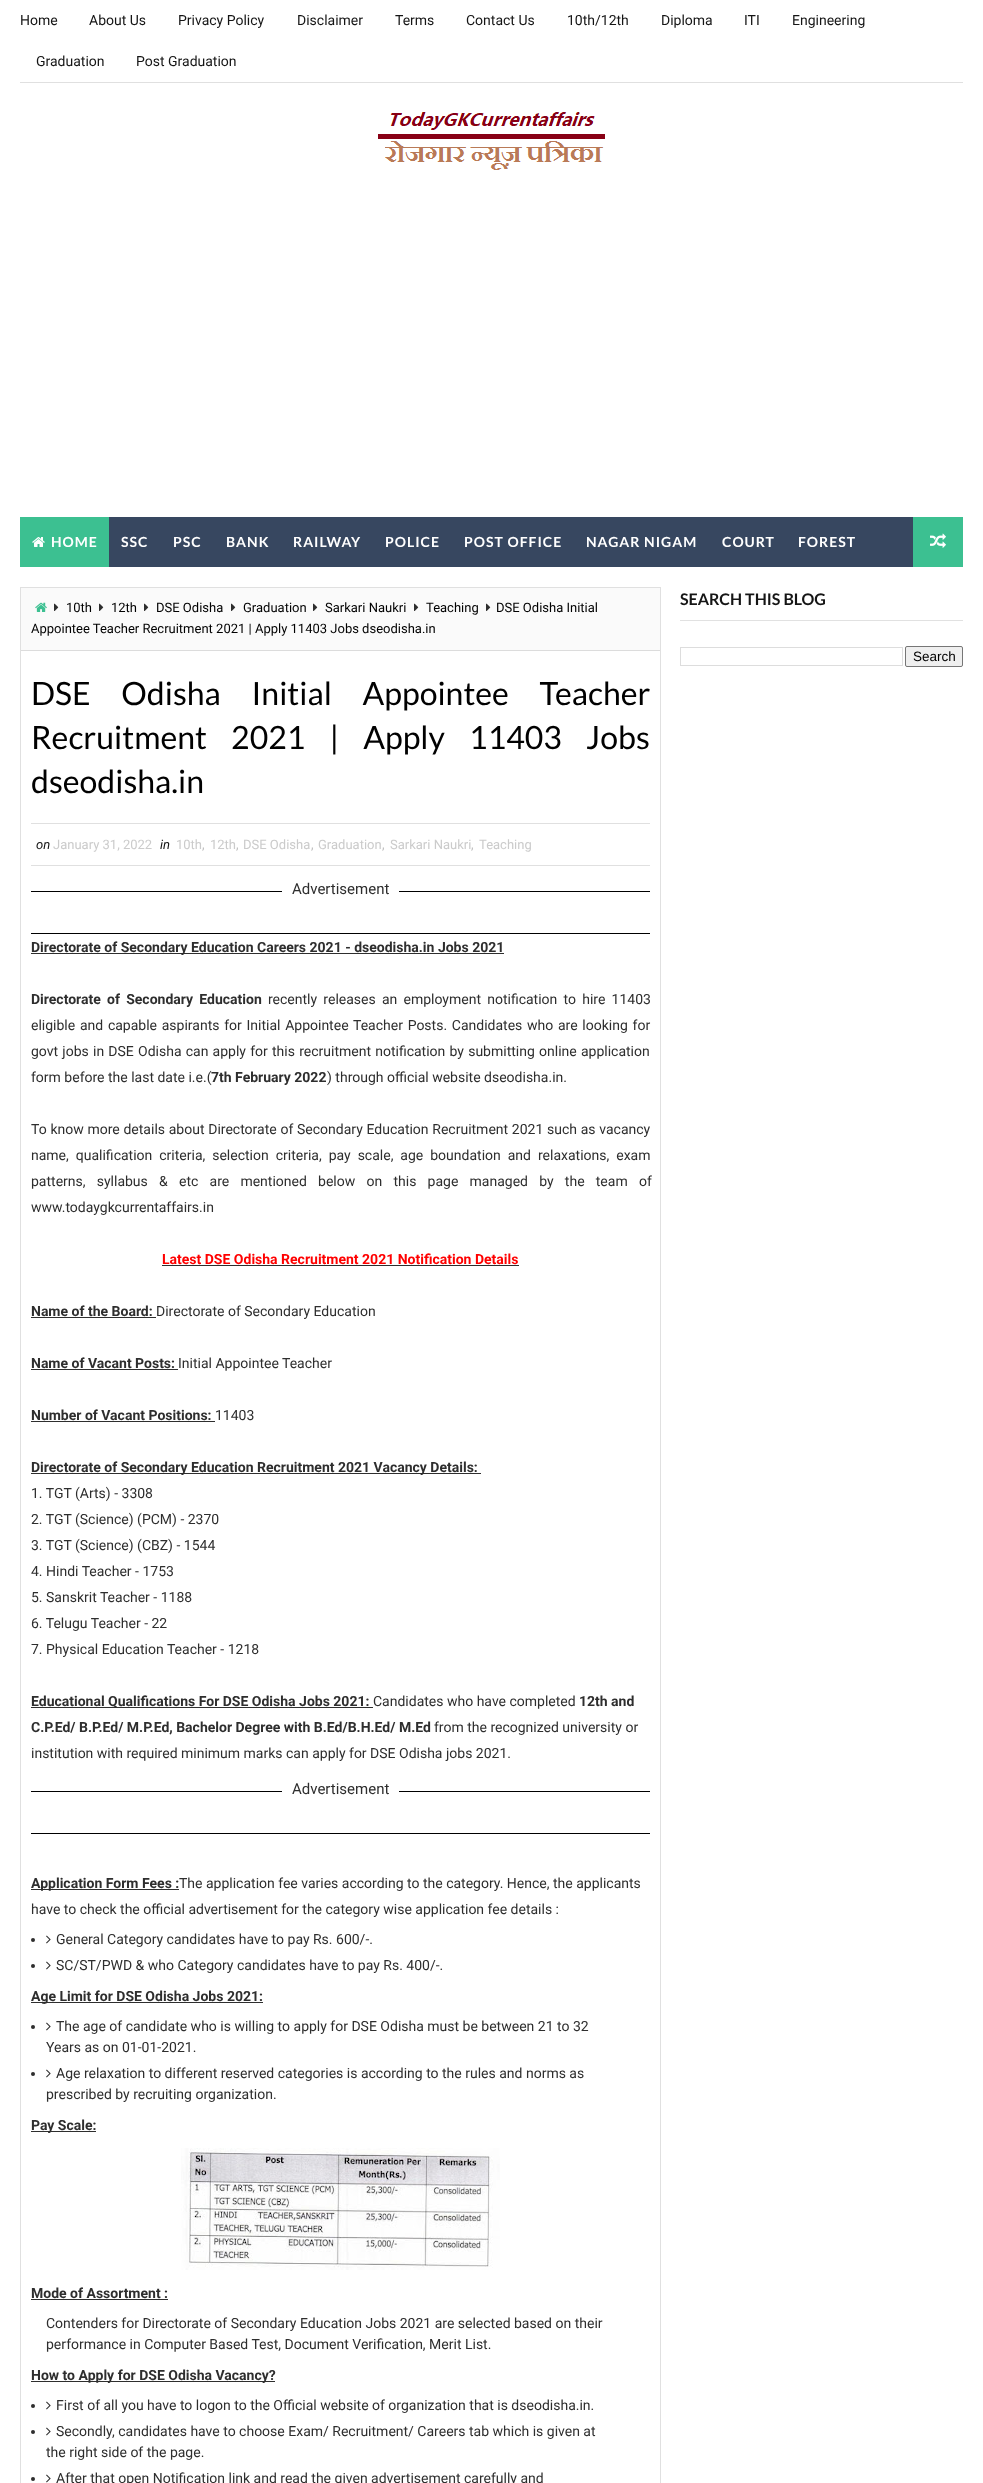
async function draw(canvas) {
  canvas.width = 983;
  canvas.height = 2483;
  const ctx = canvas.getContext('2d');
  ctx.miterLimit = 4;
  ctx.fontKerning = 'normal';
  function label(s, x, y, font, color) {
    ctx.font = font;
    ctx.fillStyle = color;
    ctx.fillText(s, x, y);
  }
  function rect(x, y, w, h, color) {
    ctx.fillStyle = color;
    ctx.fillRect(x, y, w, h);
  }
  async function image(src, x, y, w, h) {
    const img = new Image();
    img.src = src;
    await img.decode();
    ctx.drawImage(img, x, y, w, h);
  }

  rect(0, 0, 983, 2483, '#fff');
  rect(20, 82, 943, 1, '#e0e0e0');
  label('Home', 20, 25, '14px Roboto', '#151515');
  label('About Us', 89, 25, '14px Roboto', '#151515');
  label('Privacy Policy', 178, 25, '14px Roboto', '#151515');
  label('Disclaimer', 297, 25, '14px Roboto', '#151515');
  label('Terms', 395, 25, '14px Roboto', '#151515');
  label('Contact Us', 466, 25, '14px Roboto', '#151515');
  label('10th/12th', 567, 25, '14px Roboto', '#151515');
  label('Diploma', 661, 25, '14px Roboto', '#151515');
  label('ITI', 744, 25, '14px Roboto', '#151515');
  label('Engineering', 792, 25, '14px Roboto', '#151515');
  label('Graduation', 36, 66, '14px Roboto', '#151515');
  label('Post Graduation', 136, 66, '14px Roboto', '#151515');
  await image('assets/img1.png', 378, 112, 227, 58);
  rect(109, 517, 804, 50, '#374760');
  rect(20, 517, 89, 50, '#3cc091');
  await image('assets/img2.png', 32, 537, 13, 10);
  ctx.letterSpacing = '1px';
  label('HOME', 51, 547, 'bold 14px Lato', '#fff');
  label('SSC', 121, 547, 'bold 14px Lato', '#fff');
  label('PSC', 173, 547, 'bold 14px Lato', '#fff');
  label('BANK', 226, 547, 'bold 14px Lato', '#fff');
  label('RAILWAY', 293, 547, 'bold 14px Lato', '#fff');
  label('POLICE', 385, 547, 'bold 14px Lato', '#fff');
  label('POST OFFICE', 464, 547, 'bold 14px Lato', '#fff');
  label('NAGAR NIGAM', 586, 547, 'bold 14px Lato', '#fff');
  label('COURT', 722, 547, 'bold 14px Lato', '#fff');
  label('FOREST', 798, 547, 'bold 14px Lato', '#fff');
  rect(913, 517, 50, 50, '#3cc091');
  await image('assets/img3.png', 930, 533, 16, 15);
  ctx.strokeStyle = '#e0e0e0';
  ctx.strokeRect(20.5, 587.5, 640, 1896);
  rect(21, 588, 639, 62, '#fafafa');
  rect(21, 650, 639, 1, '#dcdcdc');
  await image('assets/img4.png', 35, 602, 12, 10);
  await image('assets/img5.png', 54, 603, 5, 8);
  ctx.letterSpacing = '0px';
  label('10th', 66, 612, '13px Roboto', '#010101');
  await image('assets/img5.png', 99, 603, 5, 8);
  label('12th', 111, 612, '13px Roboto', '#010101');
  await image('assets/img5.png', 144, 603, 5, 8);
  label('DSE Odisha', 156, 612, '13px Roboto', '#010101');
  await image('assets/img5.png', 231, 603, 5, 8);
  label('Graduation', 243, 612, '13px Roboto', '#010101');
  await image('assets/img5.png', 313, 603, 5, 8);
  label('Sarkari Naukri', 325, 612, '13px Roboto', '#010101');
  await image('assets/img5.png', 414, 603, 5, 8);
  label('Teaching', 426, 612, '13px Roboto', '#010101');
  await image('assets/img5.png', 486, 603, 5, 8);
  label('DSE Odisha Initial', 496, 612, '13px Roboto', '#010101');
  label('Appointee Teacher Recruitment 2021 | Apply 11403 Jobs dseodisha.in', 31, 633, '13px Roboto', '#010101');
  ctx.wordSpacing = '24.5px';
  label('DSE Odisha Initial Appointee Teacher', 31, 705, '32px Lato', '#010101');
  ctx.wordSpacing = '18px';
  label('Recruitment 2021 | Apply 11403 Jobs', 31, 749, '32px Lato', '#010101');
  ctx.wordSpacing = '0px';
  label('dseodisha.in', 31, 793, '32px Lato', '#010101');
  rect(31, 823, 619, 1, '#e0e0e0');
  rect(31, 865, 619, 1, '#e0e0e0');
  label('on', 36, 849, 'italic 13px Roboto', '#151515');
  label('January 31, 2022', 53, 849, '13px Roboto', '#cbcbcb');
  label('in', 160, 849, 'italic 13px Roboto', '#151515');
  label('10th', 176, 849, '13px Roboto', '#cbcbcb');
  label(',', 202, 849, '13px Roboto', '#bdbdbd');
  label('12th', 210, 849, '13px Roboto', '#cbcbcb');
  label(',', 236, 849, '13px Roboto', '#bdbdbd');
  label('DSE Odisha', 243, 849, '13px Roboto', '#cbcbcb');
  label(',', 311, 849, '13px Roboto', '#bdbdbd');
  label('Graduation', 318, 849, '13px Roboto', '#cbcbcb');
  label(',', 382, 849, '13px Roboto', '#bdbdbd');
  label('Sarkari Naukri', 390, 849, '13px Roboto', '#cbcbcb');
  label(',', 471, 849, '13px Roboto', '#bdbdbd');
  label('Teaching', 479, 849, '13px Roboto', '#cbcbcb');
  rect(31, 891, 619, 1, '#000');
  rect(282, 891, 117, 1, '#fff');
  label('Advertisement', 292, 894, '15px Roboto', '#2e2e2e');
  rect(31, 933, 619, 1, '#000');
  rect(31, 953, 473, 1, '#2e2e2e');
  label('Directorate of Secondary Education Careers 2021 - dseodisha.in Jobs 2021', 31, 952, 'bold 14px Roboto', '#2e2e2e');
  ctx.wordSpacing = '2.75px';
  label('Directorate of Secondary Education', 31, 1004, 'bold 14px Roboto', '#2e2e2e');
  label('recently releases an employment notification to hire 11403', 268, 1004, '14px Roboto', '#2e2e2e');
  ctx.wordSpacing = '1.25px';
  label('eligible and capable aspirants for Initial Appointee Teacher Posts. Candidates who are looking for', 31, 1030, '14px Roboto', '#2e2e2e');
  ctx.wordSpacing = '0.75px';
  label('govt jobs in DSE Odisha can apply for this recruitment notification by submitting online application', 31, 1056, '14px Roboto', '#2e2e2e');
  ctx.wordSpacing = '0px';
  label('form before the last date i.e.(', 31, 1082, '14px Roboto', '#2e2e2e');
  label('7th February 2022', 211, 1082, 'bold 14px Roboto', '#2e2e2e');
  label(') through official website dseodisha.in.', 327, 1082, '14px Roboto', '#2e2e2e');
  ctx.wordSpacing = '0.25px';
  label('To know more details about Directorate of Secondary Education Recruitment 2021 such as vacancy', 31, 1134, '14px Roboto', '#2e2e2e');
  ctx.wordSpacing = '3.5px';
  label('name, qualification criteria, selection criteria, pay scale, age boundation and relaxations, exam', 31, 1160, '14px Roboto', '#2e2e2e');
  ctx.wordSpacing = '7.75px';
  label('patterns, syllabus & etc are mentioned below on this page managed by the team of', 31, 1186, '14px Roboto', '#2e2e2e');
  ctx.wordSpacing = '0px';
  label('www.todaygkcurrentaffairs.in', 31, 1212, '14px Roboto', '#2e2e2e');
  label('Latest DSE Odisha Recruitment 2021 Notification Details', 162, 1264, 'bold 14px Roboto', '#f00');
  rect(162, 1265, 357, 1, '#2e2e2e');
  label('Name of the Board:', 31, 1316, 'bold 14px Roboto', '#2e2e2e');
  rect(31, 1317, 125, 1, '#2e2e2e');
  label('Directorate of Secondary Education', 156, 1316, '14px Roboto', '#2e2e2e');
  label('Name of Vacant Posts:', 31, 1368, 'bold 14px Roboto', '#2e2e2e');
  rect(31, 1369, 147, 1, '#2e2e2e');
  label('Initial Appointee Teacher', 178, 1368, '14px Roboto', '#2e2e2e');
  label('Number of Vacant Positions:', 31, 1420, 'bold 14px Roboto', '#2e2e2e');
  rect(31, 1421, 184, 1, '#2e2e2e');
  label('11403', 215, 1420, '14px Roboto', '#2e2e2e');
  rect(31, 1473, 450, 1, '#2e2e2e');
  label('Directorate of Secondary Education Recruitment 2021 Vacancy Details:', 31, 1472, 'bold 14px Roboto', '#2e2e2e');
  label('1. TGT (Arts) - 3308', 31, 1498, '14px Roboto', '#2e2e2e');
  label('2. TGT (Science) (PCM) - 2370', 31, 1524, '14px Roboto', '#2e2e2e');
  label('3. TGT (Science) (CBZ) - 1544', 31, 1550, '14px Roboto', '#2e2e2e');
  label('4. Hindi Teacher - 1753', 31, 1576, '14px Roboto', '#2e2e2e');
  label('5. Sanskrit Teacher - 1188', 31, 1602, '14px Roboto', '#2e2e2e');
  label('6. Telugu Teacher - 22', 31, 1628, '14px Roboto', '#2e2e2e');
  label('7. Physical Education Teacher - 1218', 31, 1654, '14px Roboto', '#2e2e2e');
  rect(31, 1707, 342, 1, '#2e2e2e');
  label('Educational Qualifications For DSE Odisha Jobs 2021:', 31, 1706, 'bold 14px Roboto', '#2e2e2e');
  label('Candidates who have completed', 373, 1706, '14px Roboto', '#2e2e2e');
  label('12th and', 579, 1706, 'bold 14px Roboto', '#2e2e2e');
  label('C.P.Ed/ B.P.Ed/ M.P.Ed, Bachelor Degree with B.Ed/B.H.Ed/ M.Ed', 31, 1732, 'bold 14px Roboto', '#2e2e2e');
  label('from the recognized university or', 434, 1732, '14px Roboto', '#2e2e2e');
  label('institution with required minimum marks can apply for DSE Odisha jobs 2021.', 31, 1758, '14px Roboto', '#2e2e2e');
  rect(31, 1791, 619, 1, '#000');
  rect(282, 1791, 117, 1, '#fff');
  label('Advertisement', 292, 1794, '15px Roboto', '#2e2e2e');
  rect(31, 1833, 619, 1, '#000');
  rect(31, 1889, 148, 1, '#2e2e2e');
  label('Application Form Fees :', 31, 1888, 'bold 14px Roboto', '#2e2e2e');
  label('The application fee varies according to the category. Hence, the applicants', 179, 1888, '14px Roboto', '#2e2e2e');
  label('have to check the official advertisement for the category wise application fee details :', 31, 1914, '14px Roboto', '#2e2e2e');
  ctx.beginPath();
  ctx.arc(33, 1940, 2, 0, 2 * Math.PI);
  ctx.fill();
  await image('assets/img6.png', 46, 1935, 5, 9);
  label('General Category candidates have to pay Rs. 600/-.', 56, 1944, '14px Roboto', '#2e2e2e');
  ctx.beginPath();
  ctx.arc(33, 1966, 2, 0, 2 * Math.PI);
  ctx.fill();
  await image('assets/img6.png', 46, 1961, 5, 9);
  label('SC/ST/PWD & who Category candidates have to pay Rs. 400/-.', 56, 1970, '14px Roboto', '#2e2e2e');
  rect(31, 2002, 232, 1, '#2e2e2e');
  label('Age Limit for DSE Odisha Jobs 2021:', 31, 2001, 'bold 14px Roboto', '#2e2e2e');
  ctx.beginPath();
  ctx.arc(33, 2027, 2, 0, 2 * Math.PI);
  ctx.fill();
  await image('assets/img6.png', 46, 2022, 5, 9);
  label('The age of candidate who is willing to apply for DSE Odisha must be between 21 to 32', 56, 2031, '14px Roboto', '#2e2e2e');
  label('Years as on 01-01-2021.', 46, 2052, '14px Roboto', '#2e2e2e');
  ctx.beginPath();
  ctx.arc(33, 2074, 2, 0, 2 * Math.PI);
  ctx.fill();
  await image('assets/img6.png', 46, 2069, 5, 9);
  label('Age relaxation to different reserved categories is according to the rules and norms as', 56, 2078, '14px Roboto', '#2e2e2e');
  label('prescribed by recruiting organization.', 46, 2099, '14px Roboto', '#2e2e2e');
  rect(31, 2131, 65, 1, '#2e2e2e');
  label('Pay Scale:', 31, 2130, 'bold 14px Roboto', '#2e2e2e');
  await image('assets/img7.png', 181, 2148, 319, 122);
  label('Mode of Assortment :', 31, 2298, 'bold 14px Roboto', '#2e2e2e');
  rect(31, 2299, 137, 1, '#2e2e2e');
  label('Contenders for Directorate of Secondary Education Jobs 2021 are selected based on their', 46, 2328, '14px Roboto', '#2e2e2e');
  label('performance in Computer Based Test, Document Verification, Merit List.', 46, 2349, '14px Roboto', '#2e2e2e');
  rect(31, 2381, 244, 1, '#2e2e2e');
  label('How to Apply for DSE Odisha Vacancy?', 31, 2380, 'bold 14px Roboto', '#2e2e2e');
  ctx.beginPath();
  ctx.arc(33, 2406, 2, 0, 2 * Math.PI);
  ctx.fill();
  await image('assets/img6.png', 46, 2401, 5, 9);
  label('First of all you have to logon to the Official website of organization that is dseodisha.in.', 56, 2410, '14px Roboto', '#2e2e2e');
  ctx.beginPath();
  ctx.arc(33, 2432, 2, 0, 2 * Math.PI);
  ctx.fill();
  await image('assets/img6.png', 46, 2427, 5, 9);
  label('Secondly, candidates have to choose Exam/ Recruitment/ Careers tab which is given at', 56, 2436, '14px Roboto', '#2e2e2e');
  label('the right side of the page.', 46, 2457, '14px Roboto', '#2e2e2e');
  ctx.beginPath();
  ctx.arc(33, 2479, 2, 0, 2 * Math.PI);
  ctx.fill();
  await image('assets/img6.png', 46, 2474, 5, 9);
  label('After that open Notification link and read the given advertisement carefully and', 56, 2483, '14px Roboto', '#2e2e2e');
  rect(680, 620, 283, 1, '#e1e1e1');
  label('SEARCH THIS BLOG', 680, 605, 'bold 16px Lato', '#151515');
  ctx.strokeStyle = '#ddd';
  ctx.strokeRect(680.5, 647.5, 222, 18);
  ctx.fillStyle = '#efefef';
  ctx.beginPath();
  ctx.roundRect(905.5, 646.5, 57, 20, 1.5);
  ctx.fill();
  ctx.strokeStyle = '#767676';
  ctx.stroke();
  label('Search', 913, 661, '13.5px Liberation Sans', '#010101');
}

draw(document.querySelector('canvas'));
